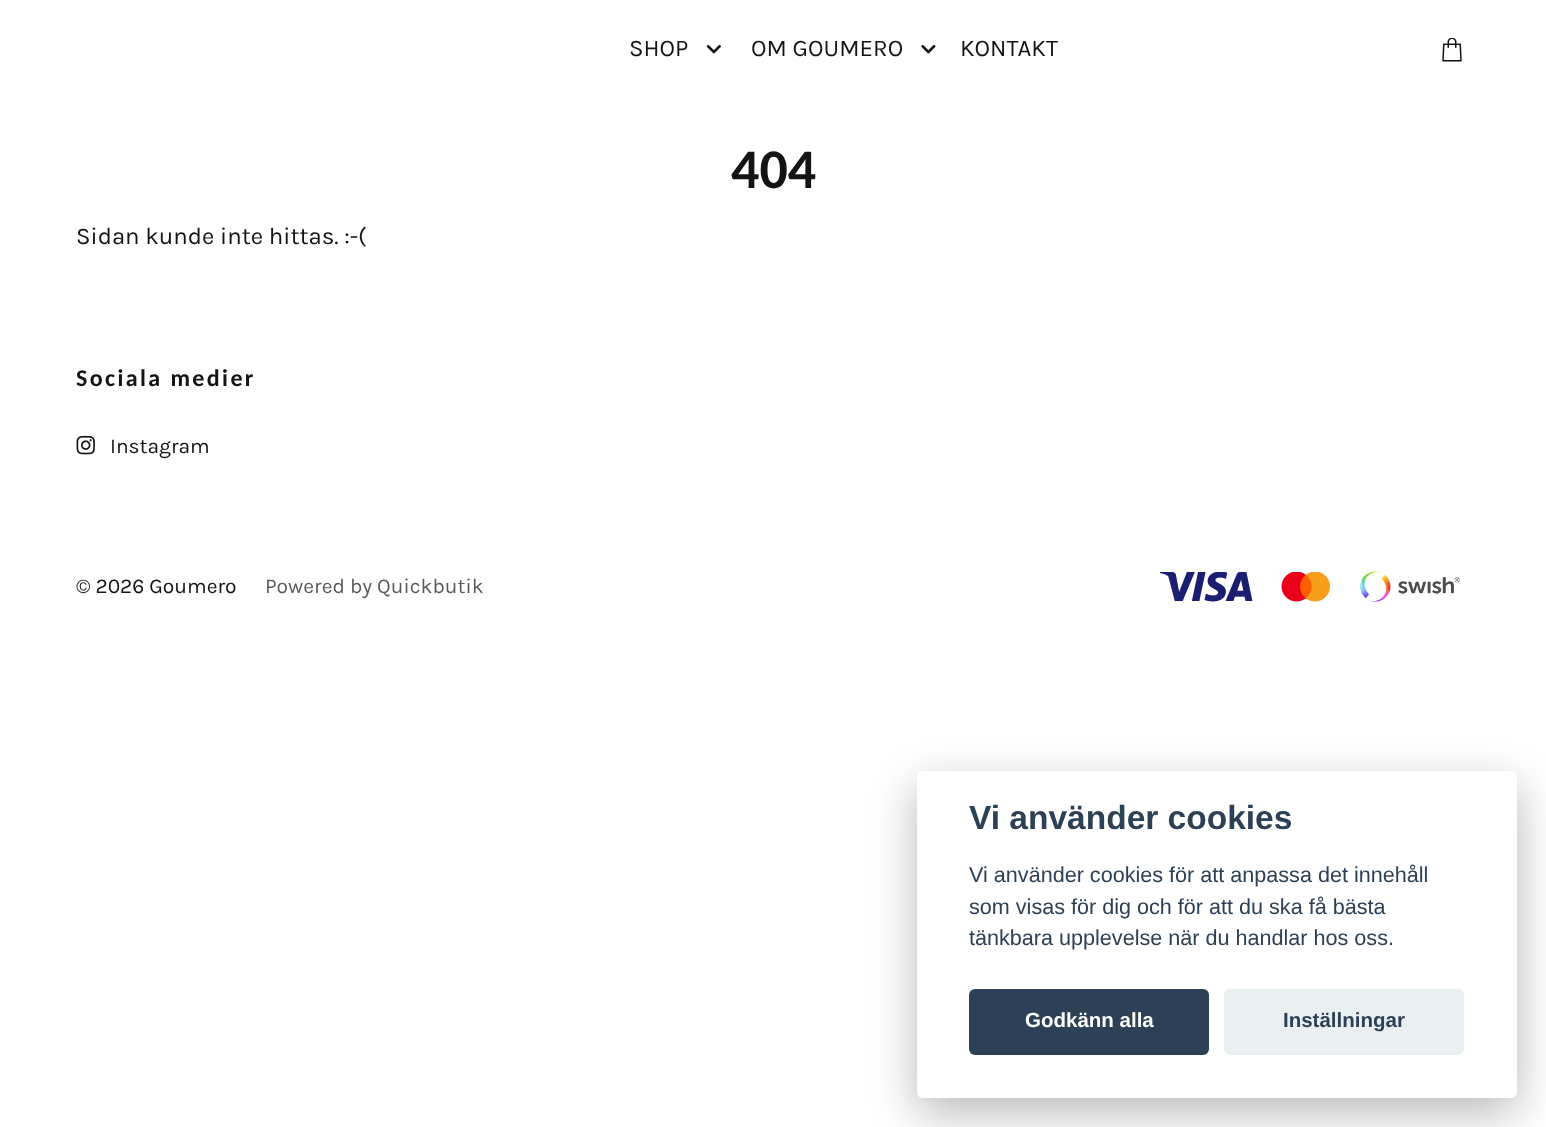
async function draw(canvas) {
  canvas.width = 1546;
  canvas.height = 1127;
  const ctx = canvas.getContext('2d');
  ctx.miterLimit = 4;
  ctx.fontKerning = 'normal';
  function label(s, x, y, font, color) {
    ctx.font = font;
    ctx.fillStyle = color;
    ctx.fillText(s, x, y);
  }
  function rect(x, y, w, h, color) {
    ctx.fillStyle = color;
    ctx.fillRect(x, y, w, h);
  }
  function roundedRect(x, y, w, h, r, color) {
    ctx.fillStyle = color;
    ctx.beginPath();
    ctx.roundRect(x, y, w, h, r);
    ctx.fill();
  }
  async function image(src, x, y, w, h) {
    const img = new Image();
    img.src = src;
    await img.decode();
    ctx.drawImage(img, x, y, w, h);
  }

  rect(0, 0, 1546, 1127, '#fff');
  label('SHOP', 629, 56, '24px Karla', '#141414');
  await image('assets/img1.png', 706, 44, 15, 10);
  label('OM GOUMERO', 751, 56, '24px Karla', '#141414');
  await image('assets/img2.png', 921, 44, 15, 10);
  label('KONTAKT', 960, 56, '24px Karla', '#141414');
  await image('assets/img3.png', 1442, 38, 20, 24);
  label('404', 731, 188, 'bold 56px Carlito', '#141414');
  label('Sidan kunde inte hittas. :-(', 76, 244, '24px Karla', '#141414');
  ctx.letterSpacing = '2.4px';
  label('Sociala medier', 76, 386, 'bold 24px Carlito', '#141414');
  await image('assets/img4.png', 76, 435, 19, 20);
  ctx.letterSpacing = '0px';
  label('Instagram', 110, 453, '21px Karla', '#141414');
  label('© 2026 Goumero', 76, 593, '21px Karla', '#141414');
  label('Powered by Quickbutik', 265, 593, '21px Karla', '#5b5b5b');
  await image('assets/img5.png', 1160, 572, 93, 30);
  await image('assets/img6.png', 1281, 572, 49, 30);
  await image('assets/img7.png', 1359, 571, 101, 31);
  ctx.fillStyle = '#02020347';
  ctx.filter = 'blur(22.5px)';
  ctx.beginPath();
  ctx.roundRect(917, 786, 600, 327, 6);
  ctx.fill();
  ctx.filter = 'none';
  roundedRect(917, 771, 600, 327, 6, '#fff');
  label('Vi använder cookies', 969, 829, 'bold 33.5px Liberation Sans', '#2d4156');
  label('Vi använder cookies för att anpassa det innehåll', 969, 882, '21.6px Liberation Sans', '#2d4156');
  label('som visas för dig och för att du ska få bästa', 969, 914, '21.6px Liberation Sans', '#2d4156');
  label('tänkbara upplevelse när du handlar hos oss.', 969, 945, '21.6px Liberation Sans', '#2d4156');
  roundedRect(969, 989, 240, 66, 6, '#2d4156');
  label('Godkänn alla', 1025, 1027, 'bold 20.5px Liberation Sans', '#fff');
  roundedRect(1224, 989, 240, 66, 6, '#eaeff2');
  label('Inställningar', 1283, 1027, 'bold 20.5px Liberation Sans', '#2d4156');
}

draw(document.querySelector('canvas'));
